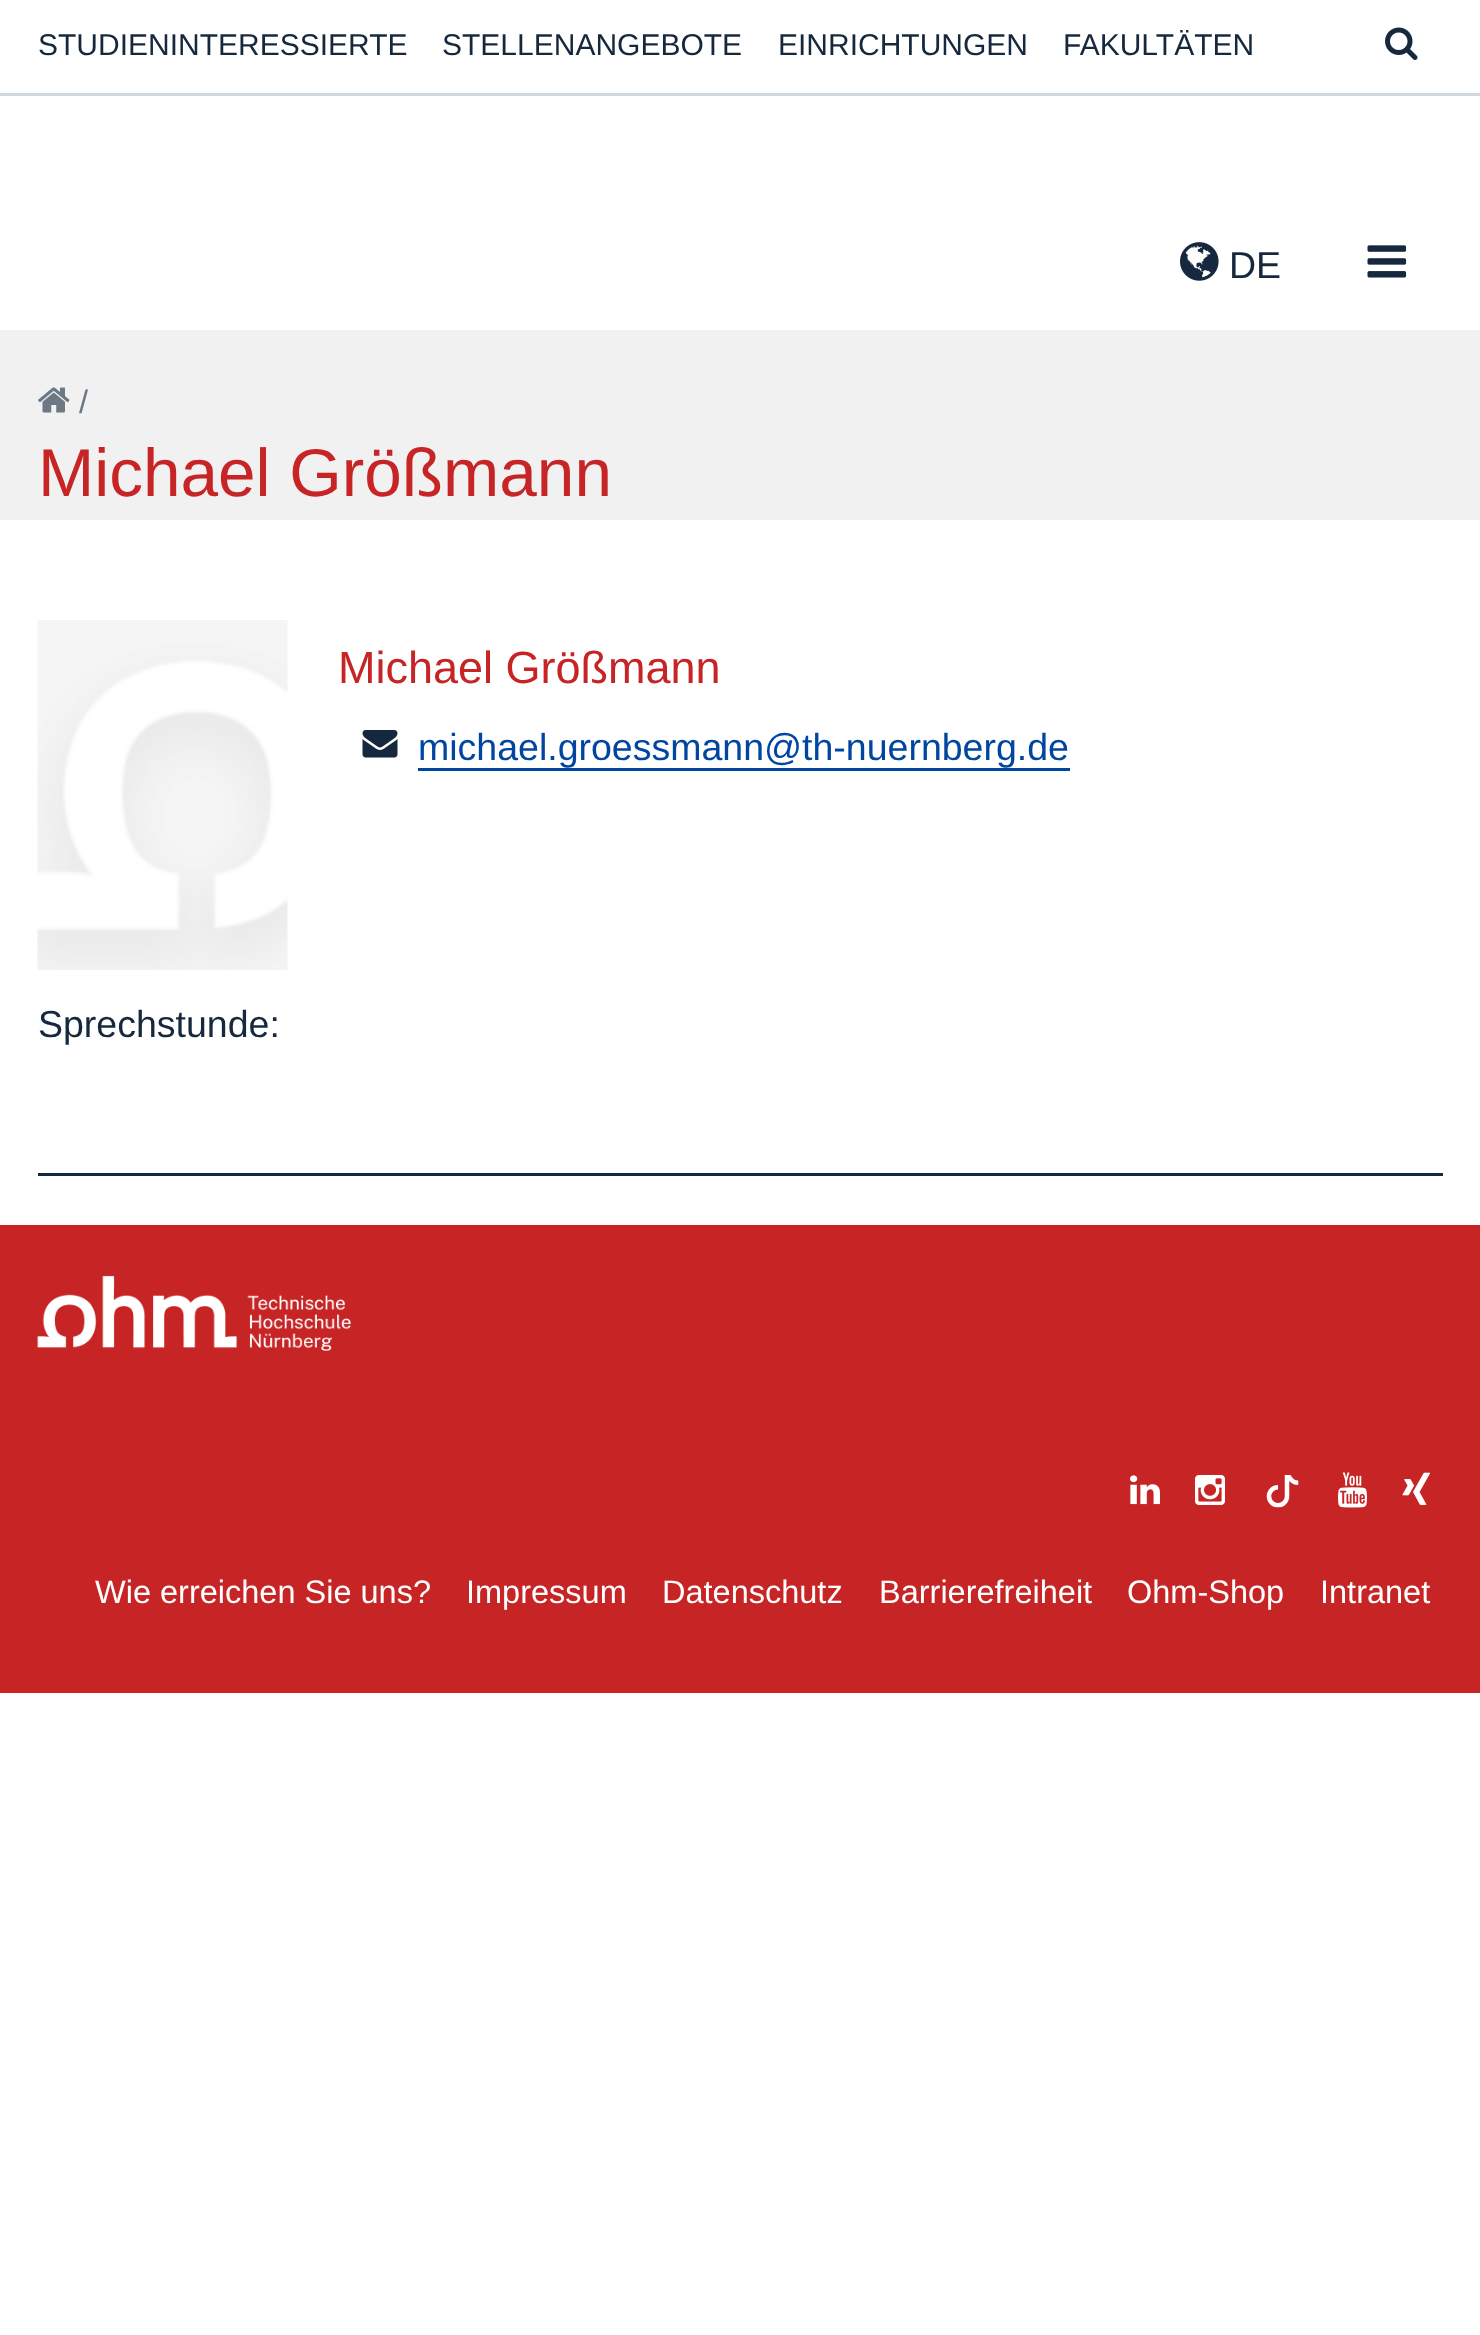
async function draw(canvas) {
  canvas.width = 1480;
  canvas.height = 2335;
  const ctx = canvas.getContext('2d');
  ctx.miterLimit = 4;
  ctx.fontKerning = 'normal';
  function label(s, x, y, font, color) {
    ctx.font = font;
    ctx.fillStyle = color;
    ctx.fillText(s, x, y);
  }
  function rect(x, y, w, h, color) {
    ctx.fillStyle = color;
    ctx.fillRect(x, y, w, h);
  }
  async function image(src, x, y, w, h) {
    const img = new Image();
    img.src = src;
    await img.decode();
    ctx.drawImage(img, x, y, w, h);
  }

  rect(0, 0, 1480, 2335, '#fff');
  rect(0, 93, 1480, 3, '#d2d8e0');
  label('STUDIENINTERESSIERTE', 38, 55, '30px Liberation Sans', '#16283d');
  label('STELLENANGEBOTE', 442, 55, '30px Liberation Sans', '#16283d');
  label('EINRICHTUNGEN', 778, 55, '30px Liberation Sans', '#16283d');
  label('FAKULTÄTEN', 1063, 55, '30px Liberation Sans', '#16283d');
  await image('assets/img1.png', 1385, 27, 33, 33);
  await image('assets/img2.png', 1180, 242, 39, 39);
  label('DE', 1229, 278, '37.5px Liberation Sans', '#16283d');
  await image('assets/img3.png', 1367, 245, 40, 33);
  rect(0, 330, 1480, 190, '#f1f1f1');
  await image('assets/img4.png', 38, 387, 32, 26);
  label('/', 79, 413, '32.5px Liberation Sans', '#6e7885');
  label('Michael Größmann', 38, 496, '67.5px Liberation Sans', '#c72426');
  label('Michael Größmann', 338, 683, '45px Liberation Sans', '#c72426');
  await image('assets/img5.png', 362, 730, 36, 28);
  label('michael.groessmann@th-nuernberg.de', 418, 760, '37.5px Liberation Sans', '#0046a0');
  rect(418, 768, 652, 3, '#0046a0');
  await image('assets/img6.png', 37, 620, 251, 350);
  label('Sprechstunde:', 38, 1037, '37.5px Liberation Sans', '#16283d');
  rect(38, 1173, 1405, 3, '#16283d');
  rect(0, 1225, 1480, 468, '#c72426');
  await image('assets/img7.png', 37, 1275, 314, 76);
  await image('assets/img8.png', 1130, 1475, 30, 30);
  await image('assets/img9.png', 1195, 1475, 30, 30);
  await image('assets/img10.png', 1266, 1475, 33, 33);
  await image('assets/img11.png', 1338, 1472, 29, 36);
  await image('assets/img12.png', 1402, 1472, 28, 33);
  label('Wie erreichen Sie uns?', 95, 1603, '32.5px Liberation Sans', '#fff');
  label('Impressum', 466, 1603, '32.5px Liberation Sans', '#fff');
  label('Datenschutz', 662, 1603, '32.5px Liberation Sans', '#fff');
  label('Barrierefreiheit', 879, 1603, '32.5px Liberation Sans', '#fff');
  label('Ohm-Shop', 1127, 1603, '32.5px Liberation Sans', '#fff');
  label('Intranet', 1320, 1603, '32.5px Liberation Sans', '#fff');
}

draw(document.querySelector('canvas'));
